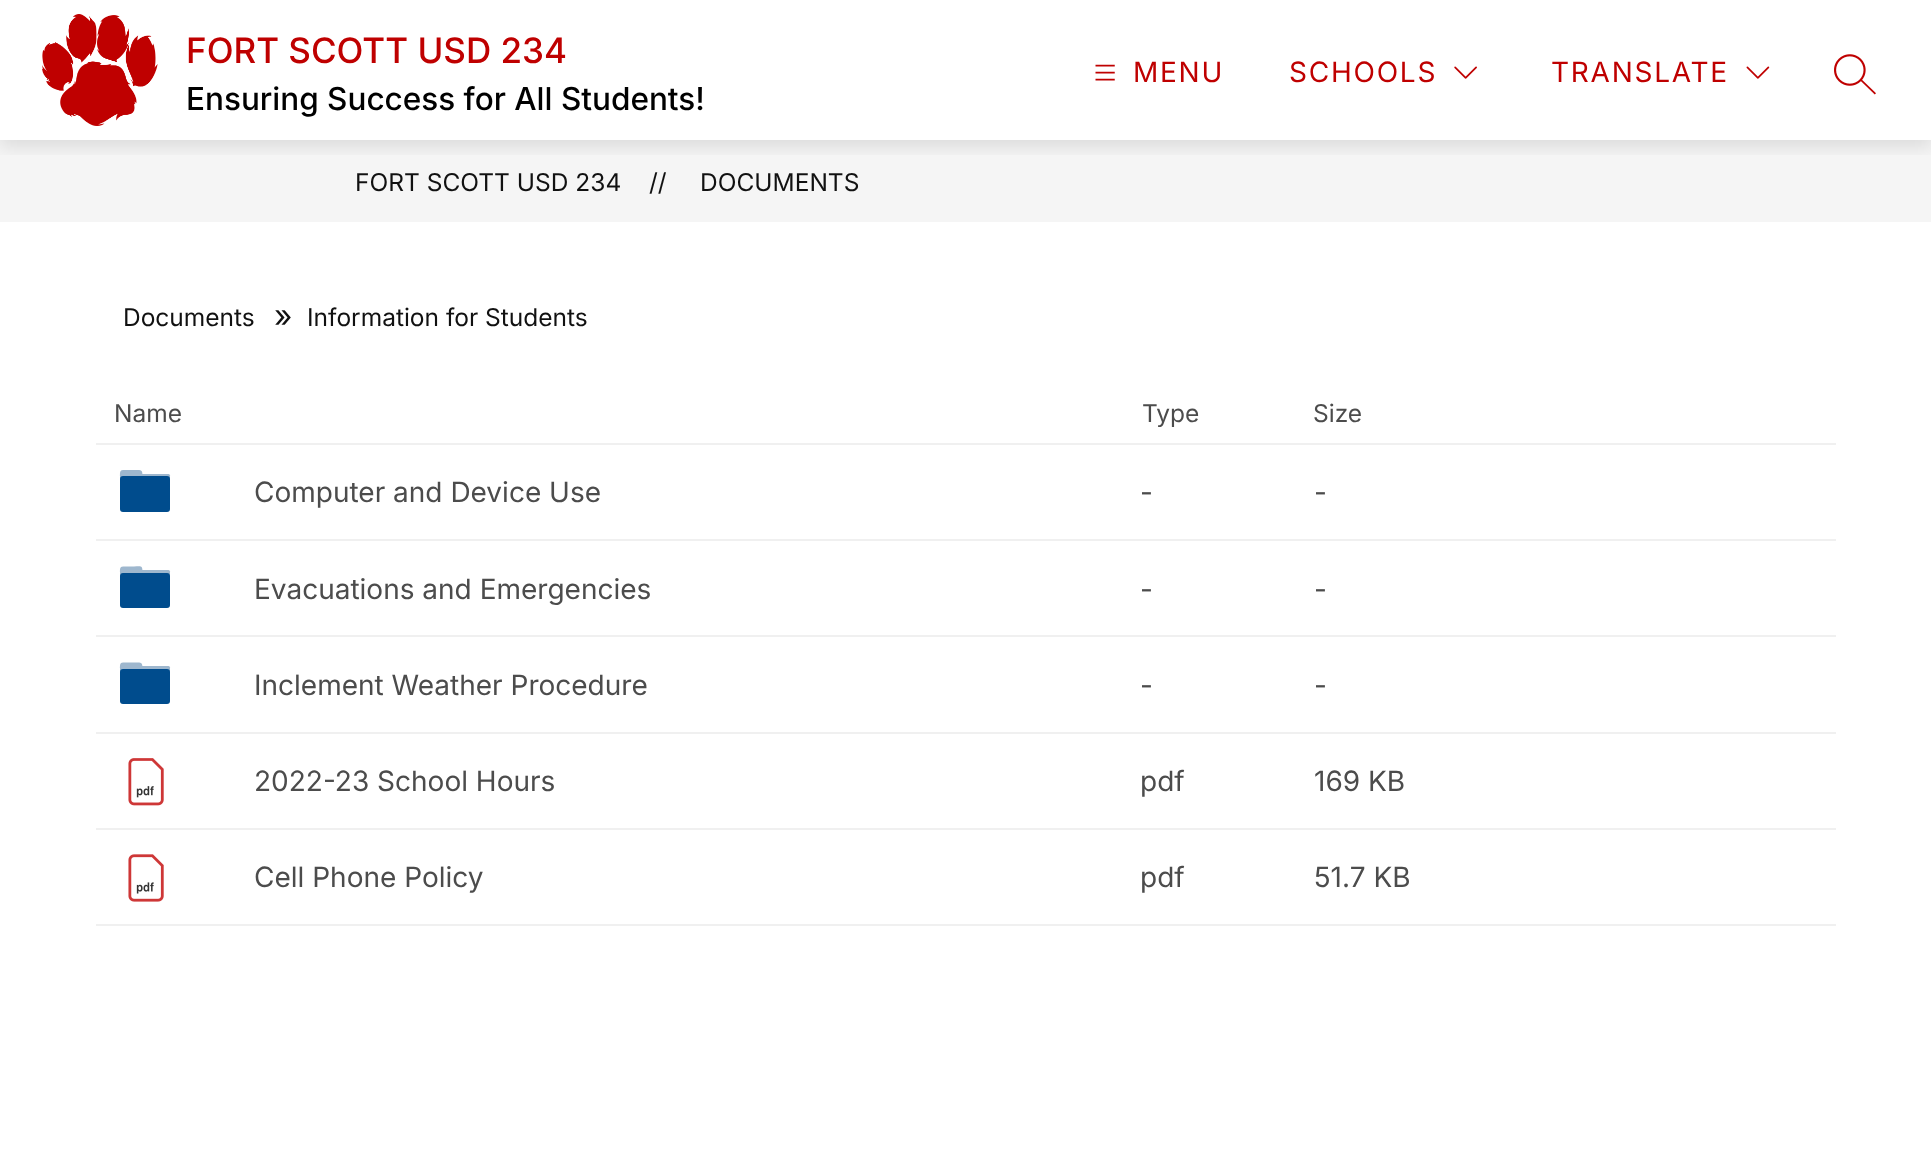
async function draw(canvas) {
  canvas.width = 1931;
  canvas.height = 1162;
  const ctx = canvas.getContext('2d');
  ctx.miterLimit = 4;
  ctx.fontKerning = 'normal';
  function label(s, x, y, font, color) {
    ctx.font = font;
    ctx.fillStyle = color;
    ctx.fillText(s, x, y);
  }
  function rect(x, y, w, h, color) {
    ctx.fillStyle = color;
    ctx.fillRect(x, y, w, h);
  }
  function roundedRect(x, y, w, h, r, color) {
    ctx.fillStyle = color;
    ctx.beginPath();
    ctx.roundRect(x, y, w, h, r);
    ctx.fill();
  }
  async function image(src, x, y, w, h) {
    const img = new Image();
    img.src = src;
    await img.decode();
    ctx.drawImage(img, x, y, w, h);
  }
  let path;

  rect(0, 0, 1931, 1162, '#fff');
  rect(0, 140, 1931, 82, '#f5f5f5');
  ctx.save();
  ctx.beginPath();
  ctx.rect(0, 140, 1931, 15);
  ctx.clip();
  ctx.fillStyle = '#0000001a';
  ctx.filter = 'blur(9px)';
  ctx.beginPath();
  ctx.rect(0, 7, 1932, 140);
  ctx.fill();
  ctx.filter = 'none';
  ctx.restore();
  await image('assets/img1.png', 42, 14, 116, 112);
  label('FORT SCOTT USD 234', 186, 63, '500 35px Inter', '#bf0000');
  label('Ensuring Success for All Students!', 186, 110, '500 31.5px Inter', '#000');
  await image('assets/img2.png', 1095, 64, 20, 17);
  ctx.letterSpacing = '1.75px';
  label('MENU', 1133, 82, '28px Inter', '#bf0000');
  label('SCHOOLS', 1289, 82, '28px Inter', '#bf0000');
  await image('assets/img3.png', 1454, 66, 23, 13);
  label('TRANSLATE', 1551, 82, '28px Inter', '#bf0000');
  await image('assets/img4.png', 1746, 66, 24, 13);
  await image('assets/img5.png', 1834, 54, 42, 41);
  ctx.letterSpacing = '0px';
  label('FORT SCOTT USD 234', 355, 191, '24.5px Inter', '#111');
  label('//', 649, 191, '24.5px Inter', '#111');
  label('DOCUMENTS', 700, 191, '24.5px Inter', '#111');
  label('Documents', 123, 326, '24.5px Inter', '#111');
  label('»', 274, 327, '31.5px Inter', '#111');
  label('Information for Students', 307, 326, '24.5px Inter', '#111');
  rect(96, 443, 1740, 2, '#f0f0f0');
  label('Name', 114, 422, '24.5px Inter', '#4c4c4c');
  label('Type', 1142, 422, '24.5px Inter', '#4c4c4c');
  label('Size', 1313, 422, '24.5px Inter', '#4c4c4c');
  rect(96, 539, 1740, 2, '#f0f0f0');
  roundedRect(120, 474, 50, 5, 1.5, '#9eb7ce');
  path = new Path2D('M123 470H134C141 470 142.5 469 142.5 476H120C120 473.5 119.5 470 123 470Z');
  ctx.fill(path);
  roundedRect(120, 476, 50, 36, 3, '#004c8d');
  label('Computer and Device Use', 254, 502, '28px Inter', '#4c4c4c');
  label('-', 1140, 502, '28px Inter', '#4c4c4c');
  label('-', 1314, 502, '28px Inter', '#4c4c4c');
  rect(96, 635, 1740, 2, '#f0f0f0');
  roundedRect(120, 570, 50, 5, 1.5, '#9eb7ce');
  path = new Path2D('M123 566.5H134C141 566.5 142.5 565 142.5 572H120C120 570 119.5 566.5 123 566.5Z');
  ctx.fill(path);
  roundedRect(120, 573, 50, 35, 3, '#004c8d');
  label('Evacuations and Emergencies', 254, 599, '28px Inter', '#4c4c4c');
  label('-', 1140, 599, '28px Inter', '#4c4c4c');
  label('-', 1314, 599, '28px Inter', '#4c4c4c');
  rect(96, 732, 1740, 2, '#f0f0f0');
  roundedRect(120, 666, 50, 6, 1.5, '#9eb7ce');
  path = new Path2D('M123 662.5H134C141 662.5 142.5 661.5 142.5 668.5H120C120 666 119.5 662.5 123 662.5Z');
  ctx.fill(path);
  roundedRect(120, 669, 50, 35, 3, '#004c8d');
  label('Inclement Weather Procedure', 254, 695, '28px Inter', '#4c4c4c');
  label('-', 1140, 695, '28px Inter', '#4c4c4c');
  label('-', 1314, 695, '28px Inter', '#4c4c4c');
  rect(96, 828, 1740, 2, '#f0f0f0');
  await image('assets/img6.png', 128, 758, 36, 48);
  label('2022-23 School Hours', 254, 791, '28px Inter', '#4c4c4c');
  label('pdf', 1140, 791, '28px Inter', '#4c4c4c');
  label('169 KB', 1314, 791, '28px Inter', '#4c4c4c');
  rect(96, 924, 1740, 2, '#f0f0f0');
  await image('assets/img7.png', 128, 854, 36, 48);
  label('Cell Phone Policy', 254, 887, '28px Inter', '#4c4c4c');
  label('pdf', 1140, 887, '28px Inter', '#4c4c4c');
  label('51.7 KB', 1314, 887, '28px Inter', '#4c4c4c');
}

draw(document.querySelector('canvas'));
